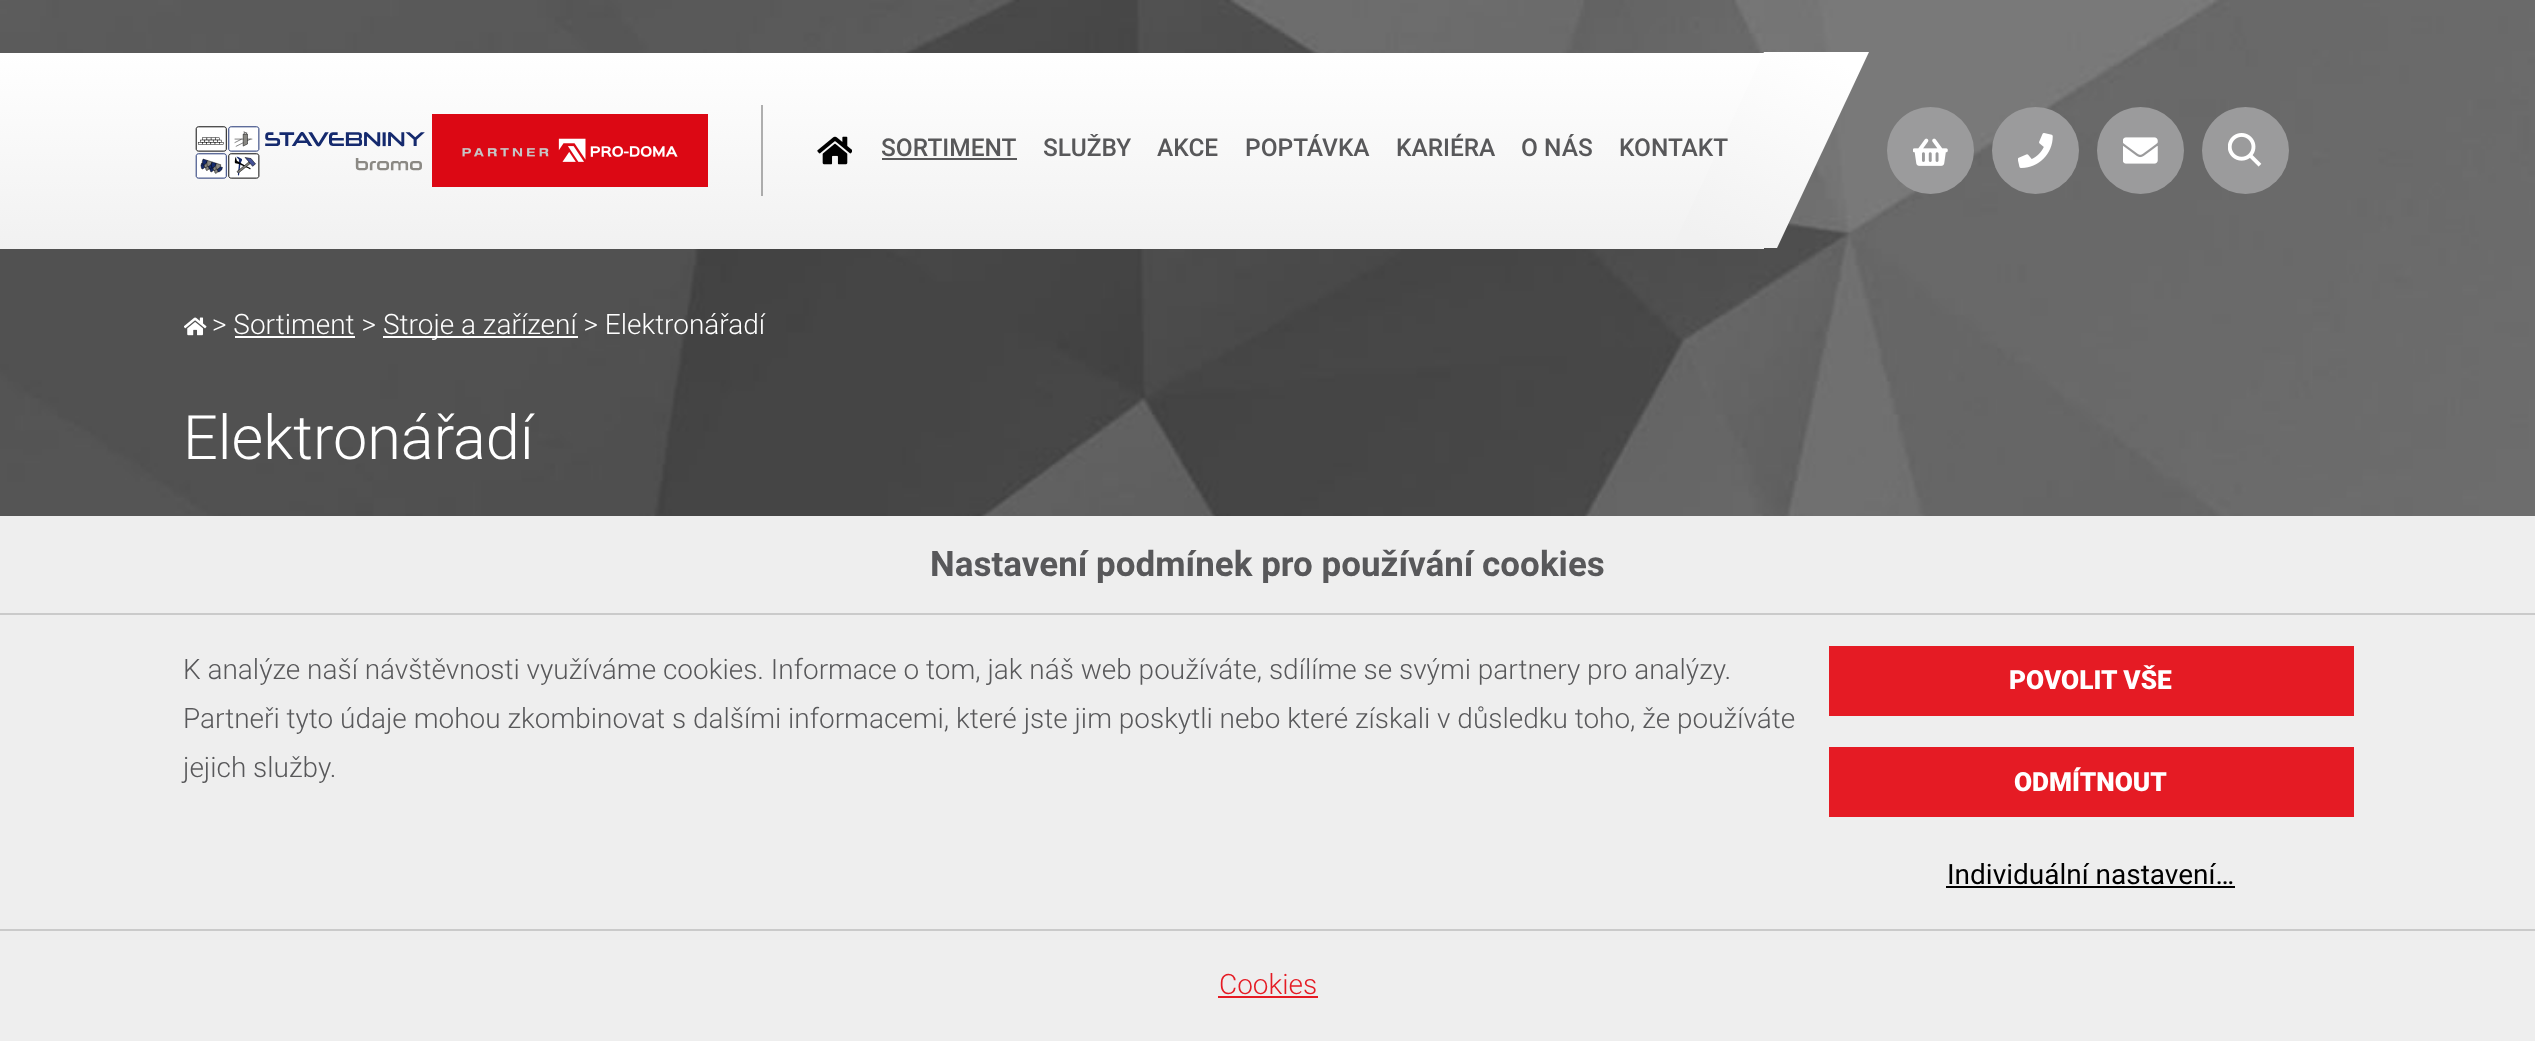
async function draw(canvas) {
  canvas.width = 2535;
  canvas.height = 1041;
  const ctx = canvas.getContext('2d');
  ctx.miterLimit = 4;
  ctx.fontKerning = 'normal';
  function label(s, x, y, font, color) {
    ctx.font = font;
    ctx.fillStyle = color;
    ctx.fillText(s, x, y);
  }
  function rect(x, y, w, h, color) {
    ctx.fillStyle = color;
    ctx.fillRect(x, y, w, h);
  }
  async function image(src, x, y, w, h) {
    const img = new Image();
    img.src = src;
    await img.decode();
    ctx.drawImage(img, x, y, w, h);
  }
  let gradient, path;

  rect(0, 0, 2535, 1041, '#fff');
  await image('assets/img1.png', 0, 0, 2535, 516);
  gradient = ctx.createLinearGradient(92, 52, 92, 249);
  gradient.addColorStop(0, '#fff');
  gradient.addColorStop(1, '#f1f1f1');
  ctx.fillStyle = gradient;
  ctx.fillRect(0, 53, 184, 196);
  gradient = ctx.createLinearGradient(500, 52, 500, 249);
  gradient.addColorStop(0, '#fff');
  gradient.addColorStop(1, '#f1f1f1');
  ctx.fillStyle = gradient;
  ctx.fillRect(184, 53, 632, 196);
  rect(761, 105, 2, 91, '#0000004d');
  await image('assets/img2.png', 195, 126, 230, 53);
  await image('assets/img3.png', 432, 114, 276, 73);
  gradient = ctx.createLinearGradient(1290, 52, 1290, 249);
  gradient.addColorStop(0, '#fff');
  gradient.addColorStop(1, '#f1f1f1');
  ctx.fillStyle = gradient;
  ctx.fillRect(816, 53, 948, 196);
  await image('assets/img4.png', 817, 136, 35, 29);
  label('SORTIMENT', 881, 156, '500 24.5px Roboto', '#58585a');
  rect(882, 158, 135, 2, '#58585a');
  label('SLUŽBY', 1043, 156, '500 24.5px Roboto', '#58585a');
  label('AKCE', 1157, 156, '500 24.5px Roboto', '#58585a');
  label('POPTÁVKA', 1245, 156, '500 24.5px Roboto', '#58585a');
  label('KARIÉRA', 1396, 156, '500 24.5px Roboto', '#58585a');
  label('O NÁS', 1521, 156, '500 24.5px Roboto', '#58585a');
  gradient = ctx.createLinearGradient(1816, 52, 1725, 249);
  gradient.addColorStop(0, '#fff');
  gradient.addColorStop(1, '#f1f1f1');
  ctx.fillStyle = gradient;
  path = new Path2D('M1764 52H1869L1777 248H1672Z');
  ctx.fill(path);
  label('KONTAKT', 1619, 156, '500 24.5px Roboto', '#58585a');
  ctx.fillStyle = '#9b9b9c';
  ctx.beginPath();
  ctx.arc(1930.5, 150.5, 43.5, 0, 2 * Math.PI);
  ctx.fill();
  await image('assets/img5.png', 1913, 138, 35, 28);
  ctx.beginPath();
  ctx.arc(2035.5, 150.5, 43.5, 0, 2 * Math.PI);
  ctx.fill();
  await image('assets/img6.png', 2018, 133, 35, 35);
  ctx.beginPath();
  ctx.arc(2140.5, 150.5, 43.5, 0, 2 * Math.PI);
  ctx.fill();
  await image('assets/img7.png', 2123, 137, 35, 27);
  ctx.beginPath();
  ctx.arc(2245.5, 150.5, 43.5, 0, 2 * Math.PI);
  ctx.fill();
  await image('assets/img8.png', 2228, 133, 34, 34);
  await image('assets/img9.png', 184, 317, 23, 19);
  label('> Sortiment >', 212, 334, '300 28px Roboto', '#fff');
  rect(383, 336, 195, 2, '#fff');
  label('Stroje a zařízení > Elektronářadí', 383, 334, '300 28px Roboto', '#fff');
  rect(235, 336, 120, 2, '#fff');
  label('Elektronářadí', 183, 459, '300 61.25px Roboto', '#fff');
  rect(0, 516, 2535, 525, '#eee');
  rect(0, 613, 2535, 2, '#cacaca');
  label('Nastavení podmínek pro používání cookies', 930, 576, 'bold 35px Roboto', '#58585a');
  label('K analýze naší návštěvnosti využíváme cookies. Informace o tom, jak náš web používáte, sdílíme se svými partnery pro analýzy.', 183, 679, '300 28px Roboto', '#58585a');
  label('Partneři tyto údaje mohou zkombinovat s dalšími informacemi, které jste jim poskytli nebo které získali v důsledku toho, že používáte', 183, 728, '300 28px Roboto', '#58585a');
  label('jejich služby.', 183, 777, '300 28px Roboto', '#58585a');
  rect(1829, 646, 525, 70, '#e51b24');
  label('POVOLIT VŠE', 2009, 689, '900 26.25px Roboto', '#fff');
  rect(1829, 747, 525, 70, '#e51b24');
  label('ODMÍTNOUT', 2014, 791, '900 26.25px Roboto', '#fff');
  label('Individuální nastavení…', 1947, 884, '28px Roboto', '#000');
  rect(1946, 886, 289, 2, '#000');
  rect(0, 929, 2535, 2, '#cacaca');
  label('Cookies', 1219, 994, '300 28px Roboto', '#e51b24');
  rect(1218, 996, 100, 2, '#e51b24');
}

draw(document.querySelector('canvas'));
